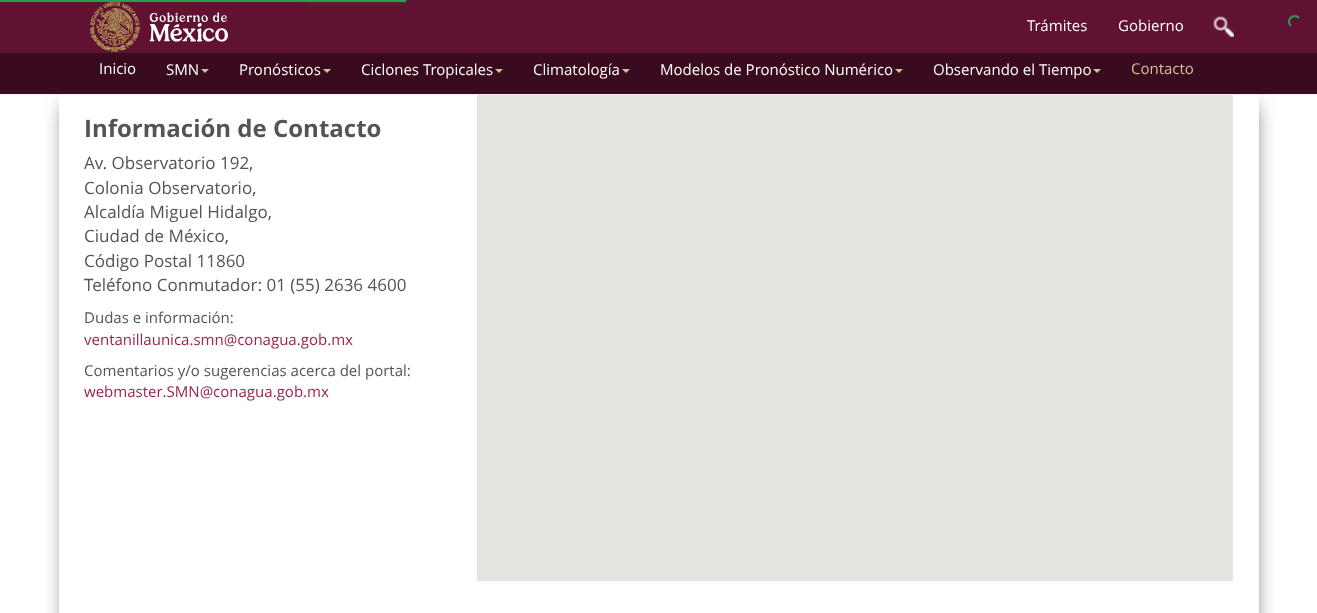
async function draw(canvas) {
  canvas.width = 1317;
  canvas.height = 613;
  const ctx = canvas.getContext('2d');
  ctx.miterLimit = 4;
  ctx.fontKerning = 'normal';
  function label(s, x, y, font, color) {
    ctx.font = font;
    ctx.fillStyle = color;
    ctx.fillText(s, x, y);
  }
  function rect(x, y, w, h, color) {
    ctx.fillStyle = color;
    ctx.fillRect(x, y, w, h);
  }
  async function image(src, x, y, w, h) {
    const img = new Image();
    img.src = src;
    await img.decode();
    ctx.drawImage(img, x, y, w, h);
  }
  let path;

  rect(0, 0, 1317, 613, '#fff');
  rect(0, 0, 1317, 53, '#611232');
  rect(0, 0, 406, 2, '#289f54');
  ctx.filter = 'blur(5px)';
  ctx.beginPath();
  ctx.rect(306, -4, 100, 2);
  ctx.fill();
  ctx.filter = 'none';
  path = new Path2D('M1291 26C1285 20.5 1293.5 12 1299 18');
  ctx.strokeStyle = '#289f54';
  ctx.lineWidth = 2;
  ctx.stroke(path);
  await image('assets/img1.png', 90, 2, 138, 50);
  label('Trámites', 1027, 31, '15px Open Sans', '#fff');
  label('Gobierno', 1118, 31, '15px Open Sans', '#fff');
  await image('assets/img2.png', 1213, 16, 21, 21);
  ctx.save();
  path = new Path2D('M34 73H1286V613H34ZM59 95H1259V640H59Z');
  ctx.clip(path, 'evenodd');
  ctx.fillStyle = '#000000bf';
  ctx.filter = 'blur(10.5px)';
  ctx.beginPath();
  ctx.rect(67, 106, 1186, 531);
  ctx.fill();
  ctx.filter = 'none';
  ctx.restore();
  rect(0, 53, 1317, 41, '#3a0b1e');
  rect(0, 94, 1317, 1, '#f6f6f6');
  label('Inicio', 99, 74, '15px Open Sans', '#fff');
  label('SMN', 166, 75, '15px Open Sans', '#fff');
  ctx.fillStyle = '#d4c19c';
  path = new Path2D('M201 69H209L205 73Z');
  ctx.fill(path);
  label('Pronósticos', 239, 75, '15px Open Sans', '#fff');
  ctx.fillStyle = '#d4c19c';
  path = new Path2D('M323 69H331L327 73Z');
  ctx.fill(path);
  label('Ciclones Tropicales', 361, 75, '15px Open Sans', '#fff');
  ctx.fillStyle = '#d4c19c';
  path = new Path2D('M495 69H503L499 73Z');
  ctx.fill(path);
  label('Climatología', 533, 75, '15px Open Sans', '#fff');
  ctx.fillStyle = '#d4c19c';
  path = new Path2D('M622 69H630L626 73Z');
  ctx.fill(path);
  label('Modelos de Pronóstico Numérico', 660, 75, '15px Open Sans', '#fff');
  ctx.fillStyle = '#d4c19c';
  path = new Path2D('M895 69H903L899 73Z');
  ctx.fill(path);
  label('Observando el Tiempo', 933, 75, '15px Open Sans', '#fff');
  ctx.fillStyle = '#d4c19c';
  path = new Path2D('M1093 69H1101L1097 73Z');
  ctx.fill(path);
  label('Contacto', 1131, 74, '15px Open Sans', '#d4c19c');
  label('Información de Contacto', 84, 137, 'bold 24px Open Sans', '#545454');
  label('Av. Observatorio 192,', 84, 169, '17px Open Sans', '#545454');
  label('Colonia Observatorio,', 84, 194, '17px Open Sans', '#545454');
  label('Alcaldía Miguel Hidalgo,', 84, 218, '17px Open Sans', '#545454');
  label('Ciudad de México,', 84, 242, '17px Open Sans', '#545454');
  label('Código Postal 11860', 84, 267, '17px Open Sans', '#545454');
  label('Teléfono Conmutador: 01 (55) 2636 4600', 84, 291, '17px Open Sans', '#545454');
  label('Dudas e información:', 84, 323, '15px Open Sans', '#545454');
  label('ventanillaunica.smn@conagua.gob.mx', 84, 345, '15px Open Sans', '#9d2449');
  label('Comentarios y/o sugerencias acerca del portal:', 84, 376, '15px Open Sans', '#545454');
  label('webmaster.SMN@conagua.gob.mx', 84, 397, '15px Open Sans', '#9d2449');
  rect(477, 95, 756, 486, '#e5e3df');
}

draw(document.querySelector('canvas'));
